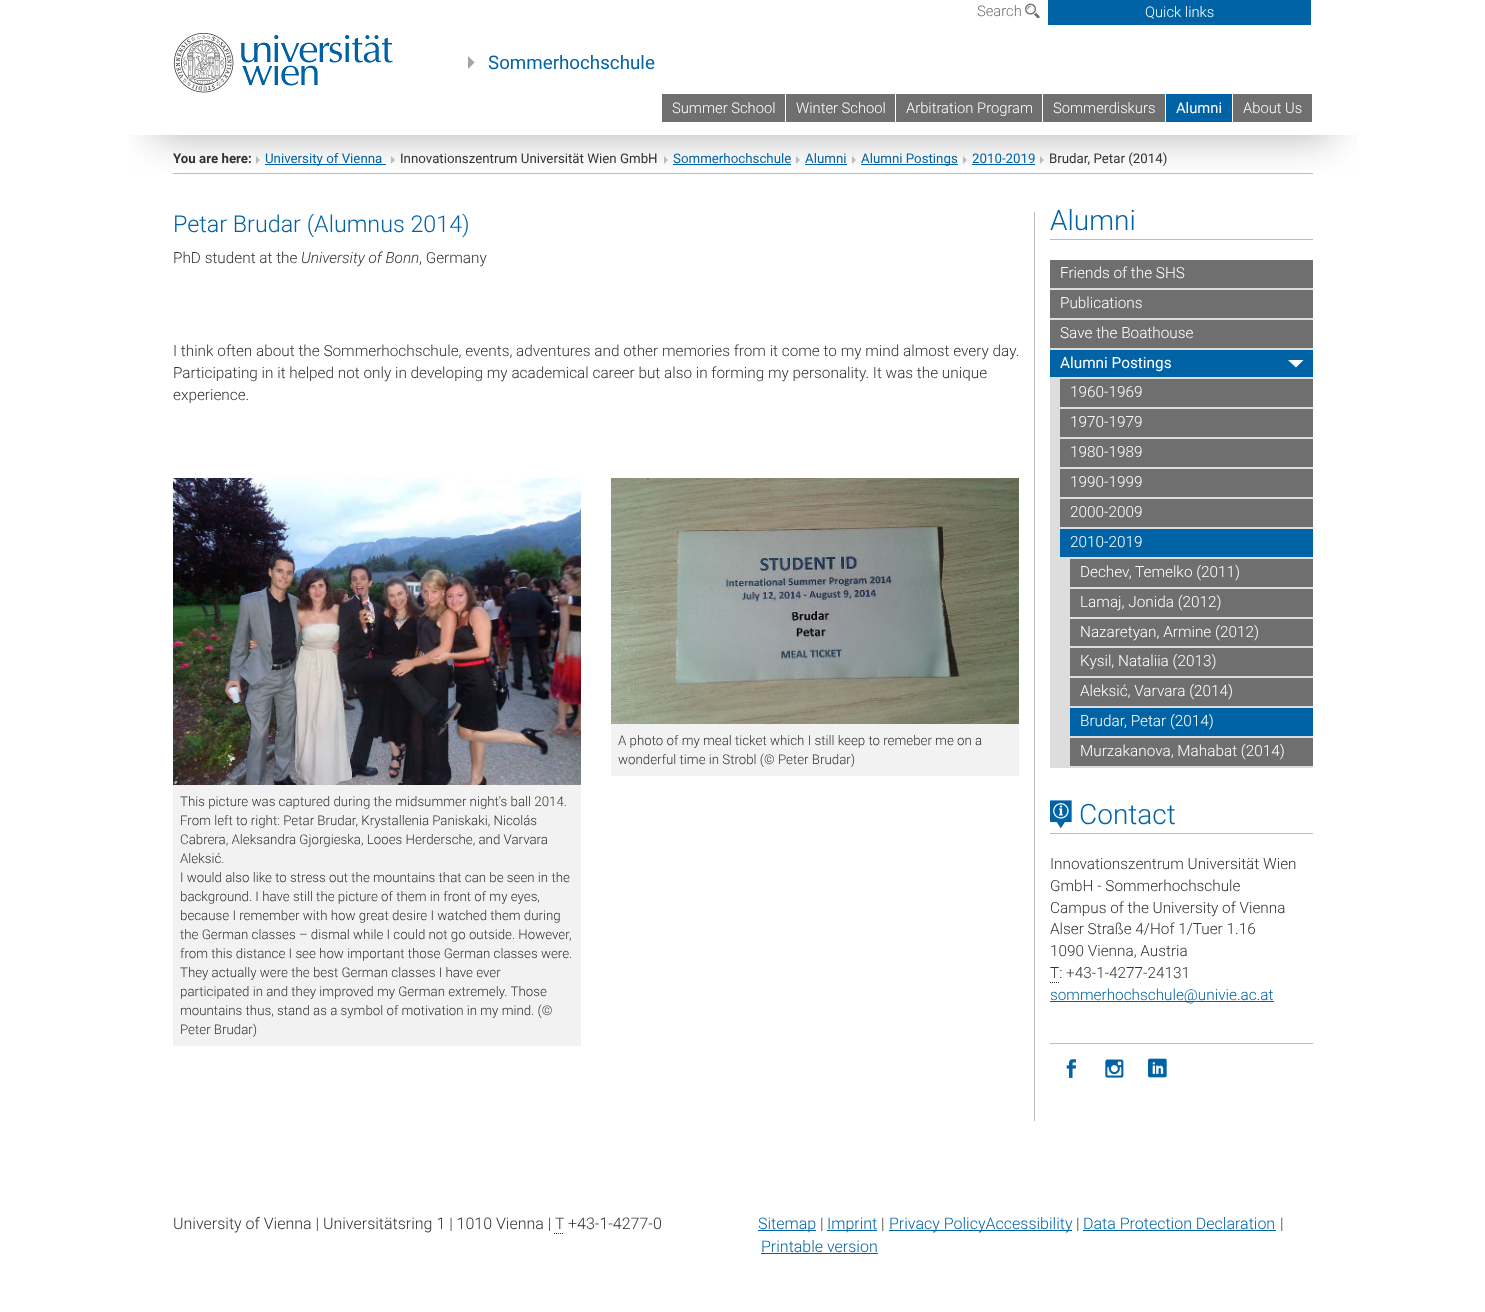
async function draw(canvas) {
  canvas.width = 1485;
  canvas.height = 1312;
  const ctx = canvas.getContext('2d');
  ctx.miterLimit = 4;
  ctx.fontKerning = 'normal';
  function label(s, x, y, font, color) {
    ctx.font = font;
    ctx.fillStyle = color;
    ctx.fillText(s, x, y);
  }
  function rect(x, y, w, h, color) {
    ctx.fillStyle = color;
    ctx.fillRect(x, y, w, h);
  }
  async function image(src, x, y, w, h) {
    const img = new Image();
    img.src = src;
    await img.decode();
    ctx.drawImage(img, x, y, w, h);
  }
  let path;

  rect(0, 0, 1485, 1312, '#fff');
  ctx.fillStyle = '#c2c2c2';
  path = new Path2D('M256 156V164L260 160Z');
  ctx.fill(path);
  rect(265, 164, 121, 1, '#0063a6');
  ctx.fillStyle = '#c2c2c2';
  path = new Path2D('M391 156V164L395 160Z');
  ctx.fill(path);
  path = new Path2D('M664 156V164L668 160Z');
  ctx.fill(path);
  rect(673, 164, 118, 1, '#0063a6');
  ctx.fillStyle = '#c2c2c2';
  path = new Path2D('M796 156V164L800 160Z');
  ctx.fill(path);
  rect(805, 164, 42, 1, '#0063a6');
  ctx.fillStyle = '#c2c2c2';
  path = new Path2D('M852 156V164L856 160Z');
  ctx.fill(path);
  rect(861, 164, 97, 1, '#0063a6');
  ctx.fillStyle = '#c2c2c2';
  path = new Path2D('M963 156V164L967 160Z');
  ctx.fill(path);
  rect(972, 164, 63, 1, '#0063a6');
  ctx.fillStyle = '#c2c2c2';
  path = new Path2D('M1040 156V164L1044 160Z');
  ctx.fill(path);
  rect(173, 173, 1140, 1, '#bdbdbd');
  ctx.save();
  ctx.beginPath();
  ctx.rect(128, 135, 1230, 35);
  ctx.clip();
  ctx.fillStyle = '#46464666';
  ctx.filter = 'blur(20px)';
  ctx.beginPath();
  ctx.rect(154, 14, 1178, 123);
  ctx.fill();
  ctx.filter = 'none';
  ctx.restore();
  rect(118, 0, 30, 135, '#fff');
  rect(1338, 0, 30, 135, '#fff');
  label('Search', 977, 16, '300 14.75px Roboto', '#6f6f6f');
  await image('assets/img1.png', 1025, 3, 15, 16);
  rect(1048, 0, 263, 25, '#0063a6');
  label('Quick links', 1145, 17, '300 14.75px Roboto', '#fff');
  await image('assets/img2.png', 173, 32, 220, 61);
  ctx.fillStyle = '#a4a4a4';
  path = new Path2D('M468 56V69L474.5 62.5Z');
  ctx.fill(path);
  label('Sommerhochschule', 488, 69, '18.75px Roboto', '#0063a6');
  rect(662, 94, 123, 28, '#6f6f6f');
  label('Summer School', 672, 113, '300 14.75px Roboto', '#fff');
  rect(786, 94, 109, 28, '#6f6f6f');
  label('Winter School', 796, 113, '300 14.75px Roboto', '#fff');
  rect(896, 94, 146, 28, '#6f6f6f');
  label('Arbitration Program', 906, 113, '300 14.75px Roboto', '#fff');
  rect(1043, 94, 122, 28, '#6f6f6f');
  label('Sommerdiskurs', 1053, 113, '300 14.75px Roboto', '#fff');
  rect(1166, 94, 66, 28, '#0063a6');
  label('Alumni', 1176, 113, '14.75px Roboto', '#fff');
  rect(1233, 94, 79, 28, '#6f6f6f');
  label('About Us', 1243, 113, '300 14.75px Roboto', '#fff');
  label('You are here:', 173, 163, 'bold 13.3px Roboto', '#333');
  label('University of Vienna', 265, 163, '13.3px Roboto', '#0063a6');
  label('Innovationszentrum Universität Wien GmbH', 400, 163, '13.3px Roboto', '#333');
  label('Sommerhochschule', 673, 163, '13.3px Roboto', '#0063a6');
  label('Alumni', 805, 163, '13.3px Roboto', '#0063a6');
  label('Alumni Postings', 861, 163, '13.3px Roboto', '#0063a6');
  label('2010-2019', 972, 163, '13.3px Roboto', '#0063a6');
  label('Brudar, Petar (2014)', 1049, 163, '13.3px Roboto', '#333');
  rect(1034, 212, 1, 909, '#bdbdbd');
  label('Petar Brudar (Alumnus 2014)', 173, 232, '300 23.3px Roboto', '#0063a6');
  label('PhD student at the', 173, 263, '300 15.33px Roboto', '#333');
  label('University of Bonn', 301, 263, 'italic 300 15.33px Roboto', '#333');
  label(', Germany', 419, 263, '300 15.33px Roboto', '#333');
  label('I think often about the Sommerhochschule, events, adventures and other memories from it come to my mind almost every day.', 173, 356, '300 15.33px Roboto', '#333');
  label('Participating in it helped not only in developing my academical career but also in forming my personality. It was the unique', 173, 378, '300 15.33px Roboto', '#333');
  label('experience.', 173, 400, '300 15.33px Roboto', '#333');
  await image('assets/img3.png', 611, 478, 408, 246);
  rect(611, 724, 408, 52, '#f2f2f2');
  label('A photo of my meal ticket which I still keep to remeber me on a', 618, 745, '300 13.3px Roboto', '#333');
  label('wonderful time in Strobl (© Peter Brudar)', 618, 764, '300 13.3px Roboto', '#333');
  await image('assets/img4.png', 173, 478, 408, 307);
  rect(173, 785, 408, 261, '#f2f2f2');
  label('This picture was captured during the midsummer night\'s ball 2014.', 180, 806, '300 13.3px Roboto', '#333');
  label('From left to right: Petar Brudar, Krystallenia Paniskaki, Nicolás', 180, 825, '300 13.3px Roboto', '#333');
  label('Cabrera, Aleksandra Gjorgieska, Looes Herdersche, and Varvara', 180, 844, '300 13.3px Roboto', '#333');
  label('Aleksić.', 180, 863, '300 13.3px Roboto', '#333');
  label('I would also like to stress out the mountains that can be seen in the', 180, 882, '300 13.3px Roboto', '#333');
  label('background. I have still the picture of them in front of my eyes,', 180, 901, '300 13.3px Roboto', '#333');
  label('because I remember with how great desire I watched them during', 180, 920, '300 13.3px Roboto', '#333');
  label('the German classes – dismal while I could not go outside. However,', 180, 939, '300 13.3px Roboto', '#333');
  label('from this distance I see how important those German classes were.', 180, 958, '300 13.3px Roboto', '#333');
  label('They actually were the best German classes I have ever', 180, 977, '300 13.3px Roboto', '#333');
  label('participated in and they improved my German extremely. Those', 180, 996, '300 13.3px Roboto', '#333');
  label('mountains thus, stand as a symbol of motivation in my mind. (©', 180, 1015, '300 13.3px Roboto', '#333');
  label('Peter Brudar)', 180, 1034, '300 13.3px Roboto', '#333');
  rect(1050, 239, 263, 1, '#bdbdbd');
  label('Alumni', 1050, 230, '300 28px Roboto', '#0063a6');
  rect(1050, 260, 263, 28, '#6f6f6f');
  rect(1050, 288, 263, 2, '#ddd');
  label('Friends of the SHS', 1060, 278, '300 15.33px Roboto', '#fff');
  rect(1050, 290, 263, 28, '#6f6f6f');
  rect(1050, 318, 263, 2, '#ddd');
  label('Publications', 1060, 308, '300 15.33px Roboto', '#fff');
  rect(1050, 320, 263, 28, '#6f6f6f');
  rect(1050, 348, 263, 2, '#ddd');
  label('Save the Boathouse', 1060, 338, '300 15.33px Roboto', '#fff');
  rect(1050, 379, 20, 389, '#ddd');
  rect(1050, 350, 263, 27, '#0063a6');
  rect(1050, 377, 263, 2, '#ddd');
  label('Alumni Postings', 1060, 368, '15.33px Roboto', '#fff');
  path = new Path2D('M1303.5 360H1288L1296 367.5Z');
  ctx.fill(path);
  rect(1060, 379, 253, 28, '#6f6f6f');
  rect(1070, 407, 243, 2, '#ddd');
  label('1960-1969', 1070, 397, '300 15.33px Roboto', '#fff');
  rect(1060, 409, 253, 28, '#6f6f6f');
  rect(1070, 437, 243, 2, '#ddd');
  label('1970-1979', 1070, 427, '300 15.33px Roboto', '#fff');
  rect(1060, 439, 253, 28, '#6f6f6f');
  rect(1070, 467, 243, 2, '#ddd');
  label('1980-1989', 1070, 457, '300 15.33px Roboto', '#fff');
  rect(1060, 469, 253, 28, '#6f6f6f');
  rect(1070, 497, 243, 2, '#ddd');
  label('1990-1999', 1070, 487, '300 15.33px Roboto', '#fff');
  rect(1060, 499, 253, 28, '#6f6f6f');
  rect(1070, 527, 243, 2, '#ddd');
  label('2000-2009', 1070, 517, '300 15.33px Roboto', '#fff');
  rect(1060, 529, 253, 28, '#0063a6');
  rect(1070, 557, 243, 2, '#ddd');
  label('2010-2019', 1070, 547, '300 15.33px Roboto', '#fff');
  rect(1070, 559, 243, 28, '#6f6f6f');
  rect(1070, 587, 243, 2, '#ddd');
  label('Dechev, Temelko (2011)', 1080, 577, '300 15.33px Roboto', '#fff');
  rect(1070, 589, 243, 28, '#6f6f6f');
  rect(1070, 617, 243, 2, '#ddd');
  label('Lamaj, Jonida (2012)', 1080, 607, '300 15.33px Roboto', '#fff');
  rect(1070, 619, 243, 27, '#6f6f6f');
  rect(1070, 646, 243, 2, '#ddd');
  label('Nazaretyan, Armine (2012)', 1080, 637, '300 15.33px Roboto', '#fff');
  rect(1070, 648, 243, 28, '#6f6f6f');
  rect(1070, 676, 243, 2, '#ddd');
  label('Kysil, Nataliia (2013)', 1080, 666, '300 15.33px Roboto', '#fff');
  rect(1070, 678, 243, 28, '#6f6f6f');
  rect(1070, 706, 243, 2, '#ddd');
  label('Aleksić, Varvara (2014)', 1080, 696, '300 15.33px Roboto', '#fff');
  rect(1070, 708, 243, 28, '#0063a6');
  rect(1070, 736, 243, 2, '#ddd');
  label('Brudar, Petar (2014)', 1080, 726, '300 15.33px Roboto', '#fff');
  rect(1070, 738, 243, 28, '#6f6f6f');
  rect(1070, 766, 243, 2, '#ddd');
  label('Murzakanova, Mahabat (2014)', 1080, 756, '300 15.33px Roboto', '#fff');
  rect(1050, 833, 263, 1, '#bdbdbd');
  await image('assets/img5.png', 1050, 800, 22, 29);
  label('Contact', 1079, 824, '300 28px Roboto', '#0063a6');
  label('Innovationszentrum Universität Wien', 1050, 869, '300 15.33px Roboto', '#333');
  label('GmbH - Sommerhochschule', 1050, 891, '300 15.33px Roboto', '#333');
  label('Campus of the University of Vienna', 1050, 913, '300 15.33px Roboto', '#333');
  label('Alser Straße 4/Hof 1/Tuer 1.16', 1050, 934, '300 15.33px Roboto', '#333');
  label('1090 Vienna, Austria', 1050, 956, '300 15.33px Roboto', '#333');
  label('T: +43-1-4277-24131', 1050, 978, '300 15.33px Roboto', '#333');
  path = new Path2D('M1050 982.5H1059');
  ctx.strokeStyle = '#333';
  ctx.setLineDash([1, 1]);
  ctx.stroke(path);
  rect(1050, 1001, 224, 1, '#0063a6');
  label('sommerhochschule@univie.ac.at', 1050, 1000, '300 15.33px Roboto', '#0063a6');
  rect(1050, 1043, 263, 1, '#bdbdbd');
  await image('assets/img6.png', 1066, 1059, 10, 19);
  await image('assets/img7.png', 1105, 1059, 19, 19);
  await image('assets/img8.png', 1148, 1058, 19, 20);
  label('University of Vienna | Universitätsring 1 | 1010 Vienna | T', 173, 1229, '300 16px Roboto', '#333');
  label('+43-1-4277-0', 568, 1229, '300 16px Roboto', '#333');
  path = new Path2D('M554 1233.5H564');
  ctx.stroke(path);
  rect(758, 1230, 58, 1, '#0063a6');
  label('Sitemap', 758, 1229, '300 16px Roboto', '#0063a6');
  label('|', 820, 1229, '300 16px Roboto', '#333');
  rect(827, 1230, 50, 1, '#0063a6');
  label('Imprint', 827, 1229, '300 16px Roboto', '#0063a6');
  label('|', 881, 1229, '300 16px Roboto', '#333');
  rect(889, 1230, 183, 1, '#0063a6');
  label('Privacy PolicyAccessibility', 889, 1229, '300 16px Roboto', '#0063a6');
  label('|', 1076, 1229, '300 16px Roboto', '#333');
  label('Data Protection Declaration', 1083, 1229, '300 16px Roboto', '#0063a6');
  rect(1083, 1230, 193, 1, '#0063a6');
  label('|', 1280, 1229, '300 16px Roboto', '#333');
  label('Printable version', 761, 1252, '300 16px Roboto', '#0063a6');
  rect(761, 1253, 117, 1, '#0063a6');
}

draw(document.querySelector('canvas'));
